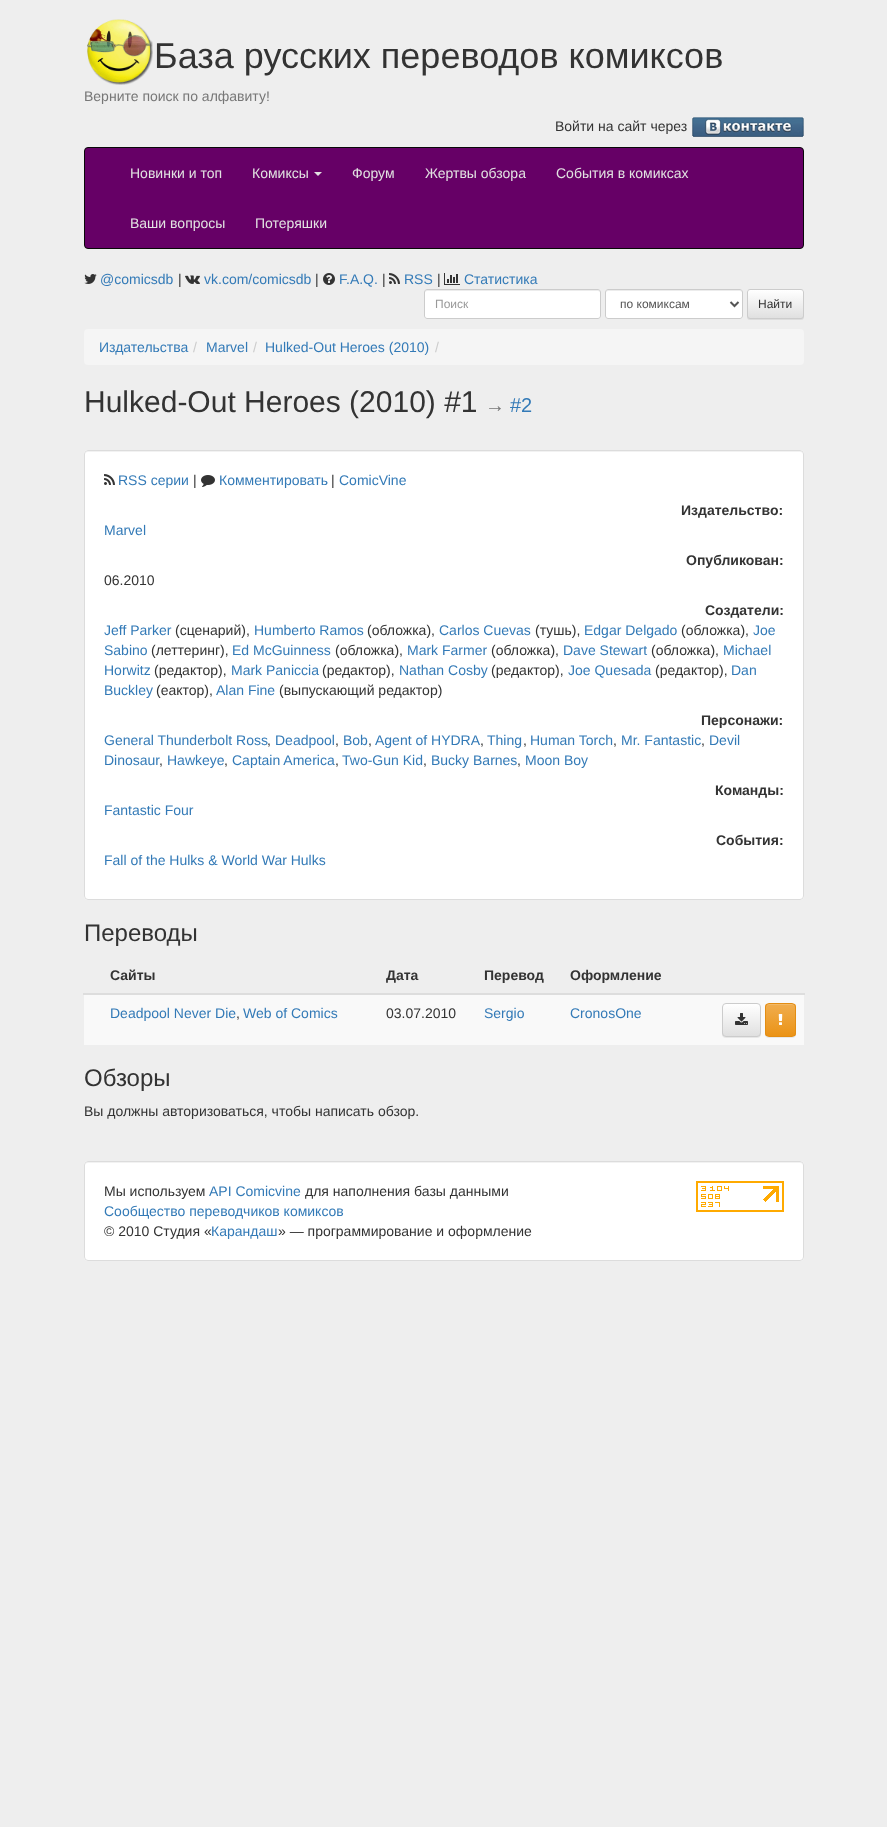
async function draw(canvas) {
  canvas.width = 887;
  canvas.height = 1827;
  const ctx = canvas.getContext('2d');
  ctx.miterLimit = 4;
  ctx.fontKerning = 'normal';
  function label(s, x, y, font, color) {
    ctx.font = font;
    ctx.fillStyle = color;
    ctx.fillText(s, x, y);
  }
  function rect(x, y, w, h, color) {
    ctx.fillStyle = color;
    ctx.fillRect(x, y, w, h);
  }
  function roundedRect(x, y, w, h, r, color) {
    ctx.fillStyle = color;
    ctx.beginPath();
    ctx.roundRect(x, y, w, h, r);
    ctx.fill();
  }
  async function image(src, x, y, w, h) {
    const img = new Image();
    img.src = src;
    await img.decode();
    ctx.drawImage(img, x, y, w, h);
  }
  let gradient, path;

  rect(0, 0, 887, 1827, '#eee');
  await image('assets/img1.png', 87, 19, 66, 66);
  label('База русских переводов комиксов', 154, 68, '36px Liberation Sans', '#333');
  label('Верните поиск по алфавиту!', 84, 101, '14px Liberation Sans', '#777');
  label('Войти на сайт через', 555, 131, '14px Liberation Sans', '#333');
  await image('assets/img2.png', 692, 117, 112, 20);
  ctx.fillStyle = '#606';
  ctx.beginPath();
  ctx.roundRect(84.5, 147.5, 719, 101, 3.5);
  ctx.fill();
  ctx.strokeStyle = '#080808';
  ctx.stroke();
  label('Новинки и топ', 130, 178, '14px Liberation Sans', '#e2e2e2');
  label('Комиксы', 252, 178, '14px Liberation Sans', '#e2e2e2');
  path = new Path2D('M314 172H322L318 176Z');
  ctx.fill(path);
  label('Форум', 352, 178, '14px Liberation Sans', '#e2e2e2');
  label('Жертвы обзора', 425, 178, '14px Liberation Sans', '#e2e2e2');
  label('События в комиксах', 556, 178, '14px Liberation Sans', '#e2e2e2');
  label('Ваши вопросы', 130, 228, '14px Liberation Sans', '#e2e2e2');
  label('Потеряшки', 255, 228, '14px Liberation Sans', '#e2e2e2');
  await image('assets/img3.png', 84, 274, 13, 10);
  label('@comicsdb', 100, 284, '14px Liberation Sans', '#337ab7');
  label('|', 178, 284, '14px Liberation Sans', '#333');
  await image('assets/img4.png', 185, 275, 15, 9);
  label('vk.com/comicsdb', 204, 284, '14px Liberation Sans', '#337ab7');
  label('|', 315, 284, '14px Liberation Sans', '#333');
  await image('assets/img5.png', 323, 273, 12, 12);
  label('F.A.Q.', 339, 284, '14px Liberation Sans', '#337ab7');
  label('|', 382, 284, '14px Liberation Sans', '#333');
  await image('assets/img6.png', 389, 273, 11, 11);
  label('RSS', 404, 284, '14px Liberation Sans', '#337ab7');
  label('|', 437, 284, '14px Liberation Sans', '#333');
  await image('assets/img7.png', 444, 273, 16, 12);
  label('Статистика', 464, 284, '14px Liberation Sans', '#337ab7');
  roundedRect(424, 289, 177, 30, 3, '#fff');
  ctx.fillStyle = '#ececec';
  path = new Path2D('M427 291H598C599 291 600 292 600 293C600 292 600 290 598 290H427C425 290 425 292 425 293C425 292 426 291 427 291Z');
  ctx.fill(path);
  ctx.beginPath();
  ctx.roundRect(424.5, 289.5, 176, 29, 2.5);
  ctx.strokeStyle = '#ccc';
  ctx.stroke();
  label('Поиск', 435, 308, '12px Liberation Sans', '#999');
  roundedRect(605, 289, 138, 30, 3, '#fff');
  ctx.fillStyle = '#ececec';
  path = new Path2D('M608 291H740C741 291 742 292 742 293C742 292 742 290 740 290H608C606 290 606 292 606 293C606 292 607 291 608 291Z');
  ctx.fill(path);
  ctx.beginPath();
  ctx.roundRect(605.5, 289.5, 137, 29, 2.5);
  ctx.stroke();
  path = new Path2D('M730.5 302L734.5 306L738.5 302');
  ctx.strokeStyle = '#555';
  ctx.lineWidth = 2;
  ctx.stroke(path);
  label('по комиксам', 620, 308, '12px Liberation Sans', '#555');
  ctx.fillStyle = '#00000012';
  ctx.filter = 'blur(0.5px)';
  ctx.beginPath();
  ctx.roundRect(747, 290, 57, 30, 3);
  ctx.fill();
  ctx.filter = 'none';
  ctx.save();
  ctx.beginPath();
  ctx.roundRect(747, 289, 57, 30, 3);
  ctx.clip();
  gradient = ctx.createLinearGradient(776, 290, 776, 318);
  gradient.addColorStop(0, '#fff');
  gradient.addColorStop(1, '#e0e0e0');
  ctx.fillStyle = gradient;
  ctx.fillRect(747, 290, 57, 28);
  ctx.restore();
  ctx.beginPath();
  ctx.roundRect(747.5, 289.5, 56, 29, 2.5);
  ctx.strokeStyle = '#ccc';
  ctx.lineWidth = 1;
  ctx.stroke();
  label('Найти', 758, 308, '12px Liberation Sans', '#333');
  roundedRect(84, 329, 720, 36, 4, '#f5f5f5');
  label('Издательства', 99, 352, '14px Liberation Sans', '#337ab7');
  label('/', 193, 352, '14px Liberation Sans', '#ccc');
  label('Marvel', 206, 352, '14px Liberation Sans', '#337ab7');
  label('/', 253, 352, '14px Liberation Sans', '#ccc');
  label('Hulked-Out Heroes (2010)', 265, 352, '14px Liberation Sans', '#337ab7');
  label('/', 435, 352, '14px Liberation Sans', '#ccc');
  label('Hulked-Out Heroes (2010) #1', 84, 412, '30px Liberation Sans', '#333');
  label('→', 485, 412, '20px Liberation Sans', '#777');
  label('#2', 510, 412, '20px Liberation Sans', '#337ab7');
  roundedRect(84, 450, 720, 450, 4, '#fff');
  ctx.fillStyle = '#f2f2f2';
  path = new Path2D('M88 452H800C802 452 803 453 803 455C803 453 802 451 800 451H88C86 451 85 453 85 455C85 453 86 452 88 452Z');
  ctx.fill(path);
  ctx.beginPath();
  ctx.roundRect(84.5, 450.5, 719, 449, 3.5);
  ctx.strokeStyle = '#dcdcdc';
  ctx.stroke();
  await image('assets/img8.png', 104, 474, 11, 11);
  label('RSS серии', 118, 485, '14px Liberation Sans', '#337ab7');
  label('|', 193, 485, '14px Liberation Sans', '#333');
  await image('assets/img9.png', 201, 475, 14, 12);
  label('Комментировать', 219, 485, '14px Liberation Sans', '#337ab7');
  label('|', 331, 485, '14px Liberation Sans', '#333');
  label('ComicVine', 339, 485, '14px Liberation Sans', '#337ab7');
  label('Издательство:', 681, 515, 'bold 14px Liberation Sans', '#333');
  label('Marvel', 104, 535, '14px Liberation Sans', '#337ab7');
  label('Опубликован:', 686, 565, 'bold 14px Liberation Sans', '#333');
  label('06.2010', 104, 585, '14px Liberation Sans', '#333');
  label('Создатели:', 705, 615, 'bold 14px Liberation Sans', '#333');
  label('Jeff Parker', 104, 635, '14px Liberation Sans', '#337ab7');
  label('(сценарий),', 175, 635, '14px Liberation Sans', '#333');
  label('Humberto Ramos', 254, 635, '14px Liberation Sans', '#337ab7');
  label('(обложка),', 367, 635, '14px Liberation Sans', '#333');
  label('Carlos Cuevas', 439, 635, '14px Liberation Sans', '#337ab7');
  label('(тушь),', 535, 635, '14px Liberation Sans', '#333');
  label('Edgar Delgado', 584, 635, '14px Liberation Sans', '#337ab7');
  label('(обложка),', 681, 635, '14px Liberation Sans', '#333');
  label('Joe', 753, 635, '14px Liberation Sans', '#337ab7');
  label('Sabino', 104, 655, '14px Liberation Sans', '#337ab7');
  label('(леттеринг),', 151, 655, '14px Liberation Sans', '#333');
  label('Ed McGuinness', 232, 655, '14px Liberation Sans', '#337ab7');
  label('(обложка),', 335, 655, '14px Liberation Sans', '#333');
  label('Mark Farmer', 407, 655, '14px Liberation Sans', '#337ab7');
  label('(обложка),', 491, 655, '14px Liberation Sans', '#333');
  label('Dave Stewart', 563, 655, '14px Liberation Sans', '#337ab7');
  label('(обложка),', 651, 655, '14px Liberation Sans', '#333');
  label('Michael', 723, 655, '14px Liberation Sans', '#337ab7');
  label('Horwitz', 104, 675, '14px Liberation Sans', '#337ab7');
  label('(редактор),', 154, 675, '14px Liberation Sans', '#333');
  label('Mark Paniccia', 231, 675, '14px Liberation Sans', '#337ab7');
  label('(редактор),', 322, 675, '14px Liberation Sans', '#333');
  label('Nathan Cosby', 399, 675, '14px Liberation Sans', '#337ab7');
  label('(редактор),', 491, 675, '14px Liberation Sans', '#333');
  label('Joe Quesada', 568, 675, '14px Liberation Sans', '#337ab7');
  label('(редактор),', 655, 675, '14px Liberation Sans', '#333');
  label('Dan', 731, 675, '14px Liberation Sans', '#337ab7');
  label('Buckley', 104, 695, '14px Liberation Sans', '#337ab7');
  label('(еактор),', 156, 695, '14px Liberation Sans', '#333');
  label('Alan Fine', 216, 695, '14px Liberation Sans', '#337ab7');
  label('(выпускающий редактор)', 279, 695, '14px Liberation Sans', '#333');
  label('Персонажи:', 701, 725, 'bold 14px Liberation Sans', '#333');
  label('General Thunderbolt Ross', 104, 745, '14px Liberation Sans', '#337ab7');
  label(',', 267, 745, '14px Liberation Sans', '#333');
  label('Deadpool', 275, 745, '14px Liberation Sans', '#337ab7');
  label(',', 335, 745, '14px Liberation Sans', '#333');
  label('Bob', 343, 745, '14px Liberation Sans', '#337ab7');
  label(',', 368, 745, '14px Liberation Sans', '#333');
  label('Agent of HYDRA', 375, 745, '14px Liberation Sans', '#337ab7');
  label(',', 480, 745, '14px Liberation Sans', '#333');
  label('Thing', 487, 745, '14px Liberation Sans', '#337ab7');
  label(',', 523, 745, '14px Liberation Sans', '#333');
  label('Human Torch', 530, 745, '14px Liberation Sans', '#337ab7');
  label(',', 613, 745, '14px Liberation Sans', '#333');
  label('Mr. Fantastic', 621, 745, '14px Liberation Sans', '#337ab7');
  label(',', 701, 745, '14px Liberation Sans', '#333');
  label('Devil', 709, 745, '14px Liberation Sans', '#337ab7');
  label('Dinosaur', 104, 765, '14px Liberation Sans', '#337ab7');
  label(',', 159, 765, '14px Liberation Sans', '#333');
  label('Hawkeye', 167, 765, '14px Liberation Sans', '#337ab7');
  label(',', 224, 765, '14px Liberation Sans', '#333');
  label('Captain America', 232, 765, '14px Liberation Sans', '#337ab7');
  label(',', 335, 765, '14px Liberation Sans', '#333');
  label('Two-Gun Kid', 342, 765, '14px Liberation Sans', '#337ab7');
  label(',', 423, 765, '14px Liberation Sans', '#333');
  label('Bucky Barnes', 431, 765, '14px Liberation Sans', '#337ab7');
  label(',', 517, 765, '14px Liberation Sans', '#333');
  label('Moon Boy', 525, 765, '14px Liberation Sans', '#337ab7');
  label('Команды:', 715, 795, 'bold 14px Liberation Sans', '#333');
  label('Fantastic Four', 104, 815, '14px Liberation Sans', '#337ab7');
  label('События:', 716, 845, 'bold 14px Liberation Sans', '#333');
  label('Fall of the Hulks & World War Hulks', 104, 865, '14px Liberation Sans', '#337ab7');
  label('Переводы', 84, 941, '24px Liberation Sans', '#333');
  label('Сайты', 110, 980, 'bold 14px Liberation Sans', '#333');
  label('Дата', 386, 980, 'bold 14px Liberation Sans', '#333');
  label('Перевод', 484, 980, 'bold 14px Liberation Sans', '#333');
  label('Оформление', 570, 980, 'bold 14px Liberation Sans', '#333');
  rect(83, 993, 722, 2, '#ddd');
  rect(84, 995, 720, 50, '#f9f9f9');
  label('Deadpool Never Die', 110, 1018, '14px Liberation Sans', '#337ab7');
  label(',', 236, 1018, '14px Liberation Sans', '#333');
  label('Web of Comics', 243, 1018, '14px Liberation Sans', '#337ab7');
  label('03.07.2010', 386, 1018, '14px Liberation Sans', '#333');
  label('Sergio', 484, 1018, '14px Liberation Sans', '#337ab7');
  label('CronosOne', 570, 1018, '14px Liberation Sans', '#337ab7');
  ctx.fillStyle = '#00000012';
  ctx.filter = 'blur(0.5px)';
  ctx.beginPath();
  ctx.roundRect(722, 1004, 39, 34, 4);
  ctx.fill();
  ctx.filter = 'none';
  ctx.save();
  ctx.beginPath();
  ctx.roundRect(722, 1003, 39, 34, 4);
  ctx.clip();
  gradient = ctx.createLinearGradient(742, 1004, 742, 1036);
  gradient.addColorStop(0, '#fff');
  gradient.addColorStop(1, '#e0e0e0');
  ctx.fillStyle = gradient;
  ctx.fillRect(722, 1004, 39, 32);
  ctx.restore();
  ctx.beginPath();
  ctx.roundRect(722.5, 1003.5, 38, 33, 3.5);
  ctx.strokeStyle = '#ccc';
  ctx.stroke();
  await image('assets/img10.png', 735, 1013, 13, 12);
  ctx.filter = 'blur(0.5px)';
  ctx.beginPath();
  ctx.roundRect(765, 1004, 31, 34, 4);
  ctx.fill();
  ctx.filter = 'none';
  ctx.save();
  ctx.beginPath();
  ctx.roundRect(765, 1003, 31, 34, 4);
  ctx.clip();
  gradient = ctx.createLinearGradient(781, 1004, 781, 1036);
  gradient.addColorStop(0, '#f0ad4e');
  gradient.addColorStop(1, '#eb9316');
  ctx.fillStyle = gradient;
  ctx.fillRect(765, 1004, 31, 32);
  ctx.restore();
  ctx.fillStyle = '#f2b968';
  path = new Path2D('M769 1005H792C794 1005 795 1006 795 1008C795 1003.5 792 1004 788 1004H773C769 1004 766 1003.5 766 1008C766 1006 767 1005 769 1005Z');
  ctx.fill(path);
  ctx.beginPath();
  ctx.roundRect(765.5, 1003.5, 30, 33, 3.5);
  ctx.strokeStyle = '#e38d13';
  ctx.stroke();
  await image('assets/img11.png', 778, 1014, 5, 11);
  label('Обзоры', 84, 1086, '24px Liberation Sans', '#333');
  label('Вы должны авторизоваться, чтобы написать обзор.', 84, 1116, '14px Liberation Sans', '#333');
  roundedRect(84, 1161, 720, 100, 4, '#fff');
  ctx.fillStyle = '#f2f2f2';
  path = new Path2D('M88 1163H800C802 1163 803 1164 803 1166C803 1164 802 1162 800 1162H88C86 1162 85 1164 85 1166C85 1164 86 1163 88 1163Z');
  ctx.fill(path);
  ctx.beginPath();
  ctx.roundRect(84.5, 1161.5, 719, 99, 3.5);
  ctx.strokeStyle = '#dcdcdc';
  ctx.stroke();
  label('Мы используем', 104, 1196, '14px Liberation Sans', '#333');
  label('API Comicvine', 209, 1196, '14px Liberation Sans', '#337ab7');
  label('для наполнения базы данными', 305, 1196, '14px Liberation Sans', '#333');
  await image('assets/img12.png', 696, 1181, 88, 31);
  label('Сообщество переводчиков комиксов', 104, 1216, '14px Liberation Sans', '#337ab7');
  label('© 2010 Студия «', 104, 1236, '14px Liberation Sans', '#333');
  label('Карандаш', 211, 1236, '14px Liberation Sans', '#337ab7');
  label('» — программирование и оформление', 278, 1236, '14px Liberation Sans', '#333');
}

draw(document.querySelector('canvas'));
